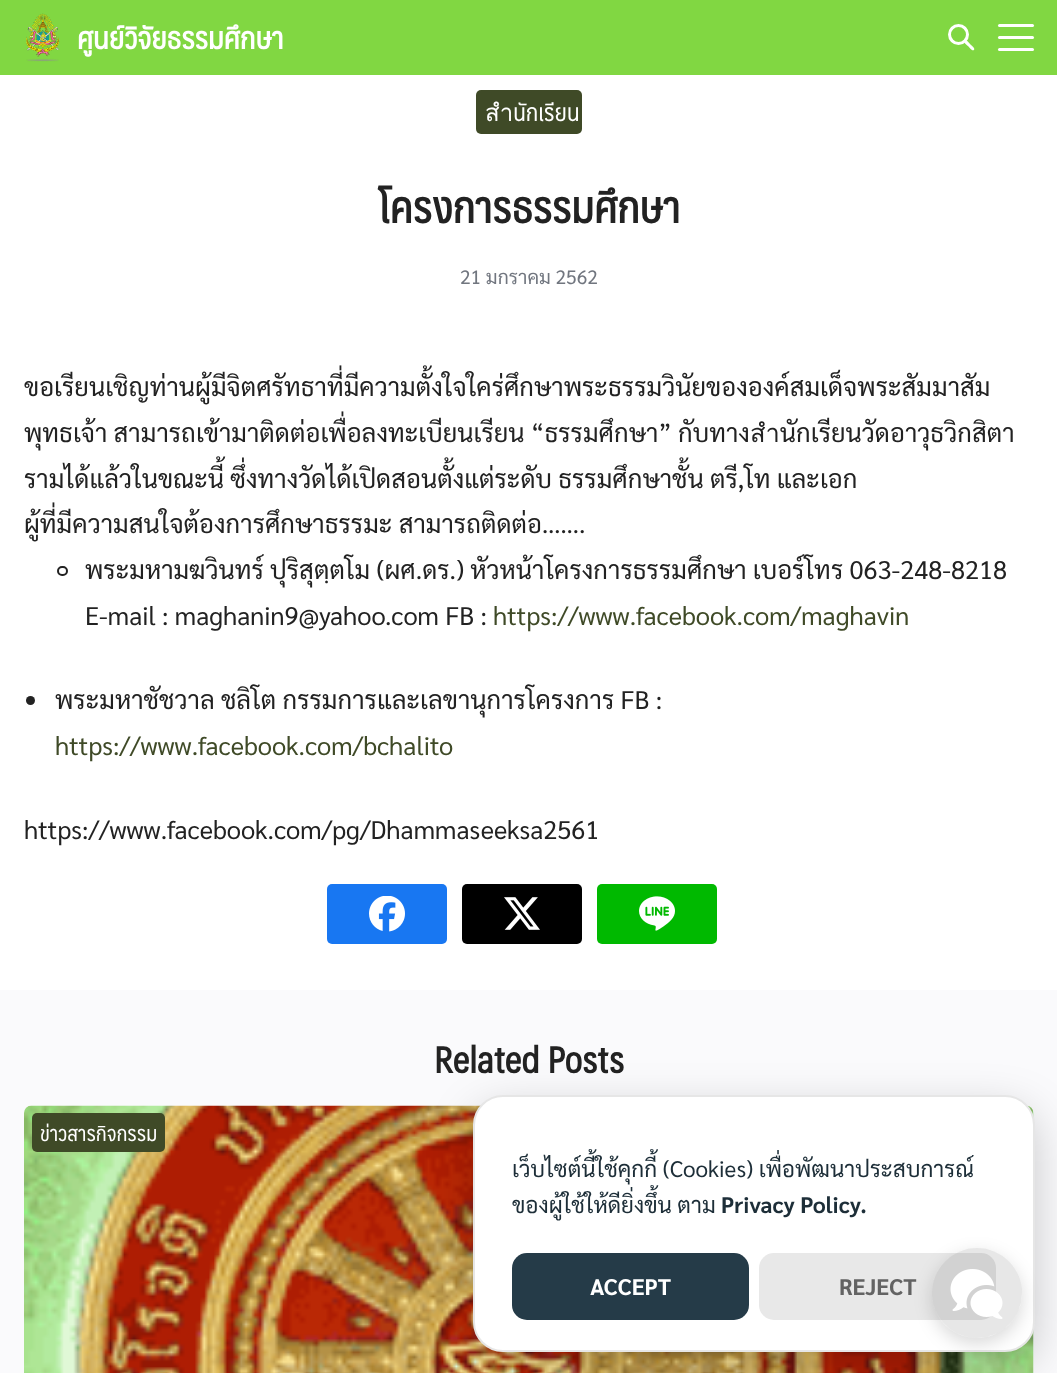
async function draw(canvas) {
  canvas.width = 1057;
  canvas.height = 1373;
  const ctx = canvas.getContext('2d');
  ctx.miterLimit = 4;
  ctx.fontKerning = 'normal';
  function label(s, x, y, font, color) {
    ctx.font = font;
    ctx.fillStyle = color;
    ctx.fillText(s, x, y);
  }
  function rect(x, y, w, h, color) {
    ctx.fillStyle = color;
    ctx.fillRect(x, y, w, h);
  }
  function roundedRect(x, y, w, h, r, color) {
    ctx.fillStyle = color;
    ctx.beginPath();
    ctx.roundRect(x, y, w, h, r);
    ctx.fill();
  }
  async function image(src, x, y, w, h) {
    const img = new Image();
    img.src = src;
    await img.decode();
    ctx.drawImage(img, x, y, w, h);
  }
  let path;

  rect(0, 0, 1057, 1373, '#fff');
  rect(0, 0, 1057, 75, '#81d742');
  await image('assets/img1.png', 26, 13, 34, 49);
  label('ศูนย์วิจัยธรรมศึกษา', 77, 49, 'bold 30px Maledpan', '#fff');
  path = new Path2D('M965 41C966.5 39 969.5 43.5 970.5 44.5C971.5 45.5 975.5 48 974 50C972 51.5 969.5 47.5 968.5 46.5C967.5 45.5 963 42.5 965 41Z');
  ctx.fill(path);
  ctx.beginPath();
  ctx.arc(958.5, 34.5, 9, 0, 2 * Math.PI);
  ctx.strokeStyle = '#fff';
  ctx.lineWidth = 3;
  ctx.stroke();
  roundedRect(998, 36, 36, 3, 1.5, '#fff');
  roundedRect(998, 24, 36, 3, 1.5, '#fff');
  roundedRect(998, 48, 36, 3, 1.5, '#fff');
  roundedRect(476, 90, 106, 44, 5, '#3f4a27');
  label('สำนักเรียน', 485, 121, '24px Maledpan', '#fff');
  label('โครงการธรรมศึกษา', 378, 223, 'bold 43.25px Maledpan', '#222');
  label('21 มกราคม 2562', 460, 284, '19.25px Sarabun', '#71767f');
  label('ขอเรียนเชิญท่านผู้มีจิตศรัทธาที่มีความตั้งใจใคร่ศึกษาพระธรรมวินัยขององค์สมเด็จพระสัมมาสัม', 24, 396, '25.5px Sarabun', '#222');
  label('พุทธเจ้า สามารถเข้ามาติดต่อเพื่อลงทะเบียนเรียน “ธรรมศึกษา” กับทางสำนักเรียนวัดอาวุธวิกสิตา', 24, 442, '25.5px Sarabun', '#222');
  label('รามได้แล้วในขณะนี้ ซึ่งทางวัดได้เปิดสอนตั้งแต่ระดับ ธรรมศึกษาชั้น ตรี,โท และเอก', 24, 488, '25.5px Sarabun', '#222');
  label('ผู้ที่มีความสนใจต้องการศึกษาธรรมะ สามารถติดต่อ…….', 24, 533, '25.5px Sarabun', '#222');
  ctx.beginPath();
  ctx.roundRect(58, 567, 9, 8, 4);
  ctx.strokeStyle = '#222';
  ctx.lineWidth = 2;
  ctx.stroke();
  label('พระมหามฆวินทร์ ปุริสุตฺตโม (ผศ.ดร.) หัวหน้าโครงการธรรมศึกษา เบอร์โทร 063-248-8218', 85, 579, '25.5px Sarabun', '#222');
  label('E-mail : maghanin9@yahoo.com FB :', 85, 625, '25.5px Sarabun', '#222');
  label('https://www.facebook.com/maghavin', 493, 625, '25.5px Sarabun', '#3f4a27');
  ctx.fillStyle = '#222';
  ctx.beginPath();
  ctx.arc(30.5, 700.5, 4.5, 0, 2 * Math.PI);
  ctx.fill();
  label('พระมหาชัชวาล ชลิโต กรรมการและเลขานุการโครงการ FB :', 55, 709, '25.5px Sarabun', '#222');
  label('https://www.facebook.com/bchalito', 55, 755, '25.5px Sarabun', '#3f4a27');
  label('https://www.facebook.com/pg/Dhammaseeksa2561', 24, 839, '25.5px Sarabun', '#222');
  roundedRect(327, 884, 120, 60, 5, '#1877f2');
  await image('assets/img2.png', 369, 896, 36, 36);
  roundedRect(462, 884, 120, 60, 5, '#000');
  await image('assets/img3.png', 504, 897, 36, 33);
  roundedRect(597, 884, 120, 60, 5, '#00b900');
  await image('assets/img4.png', 639, 896, 36, 35);
  rect(0, 990, 1057, 383, '#fafafc');
  label('Related Posts', 434, 1073, 'bold 36px Maledpan', '#222');
  roundedRect(24, 1106, 1010, 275, 8, '#f7fffd');
  await image('assets/img5.png', 24, 1105, 1010, 268);
  roundedRect(32, 1113, 133, 39, 5, '#3f4a27');
  label('ข่าวสารกิจกรรม', 40, 1141, '21px Maledpan', '#fff');
  ctx.fillStyle = '#02020333';
  ctx.filter = 'blur(22.5px)';
  ctx.beginPath();
  ctx.roundRect(473, 1110, 562, 257, 30);
  ctx.fill();
  ctx.filter = 'none';
  ctx.fillStyle = '#fff';
  ctx.beginPath();
  ctx.roundRect(474, 1096, 560, 255, 29);
  ctx.fill();
  ctx.strokeStyle = '#e6e6e6';
  ctx.stroke();
  label('เว็บไซต์นี้ใช้คุกกี้ (Cookies) เพื่อพัฒนาประสบการณ์', 512, 1177, '22.5px Sarabun', '#1d2e38');
  label('ของผู้ใช้ให้ดียิ่งขึ้น ตาม', 512, 1213, '22.5px Sarabun', '#1d2e38');
  label('Privacy Policy.', 721, 1213, 'bold 22.5px Sarabun', '#1d2e38');
  roundedRect(512, 1253, 237, 67, 15, '#253b48');
  label('ACCEPT', 590, 1295, 'bold 22.5px Sarabun', '#fff');
  roundedRect(759, 1253, 237, 67, 15, '#e8e8e8');
  label('REJECT', 839, 1295, 'bold 22.5px Sarabun', '#636363');
  ctx.save();
  path = new Path2D('M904 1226H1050V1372H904ZM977 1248C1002 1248 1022 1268 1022 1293C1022 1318 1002 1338 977 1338C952 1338 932 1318 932 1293C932 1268 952 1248 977 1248Z');
  ctx.clip(path, 'evenodd');
  ctx.fillStyle = '#00000026';
  ctx.filter = 'blur(9px)';
  ctx.beginPath();
  ctx.roundRect(932, 1254, 90, 90, 45);
  ctx.fill();
  ctx.filter = 'none';
  ctx.restore();
  ctx.fillStyle = '#3b3b3b1f';
  ctx.beginPath();
  ctx.arc(977, 1293, 45, 0, 2 * Math.PI);
  ctx.fill();
  await image('assets/img6.png', 950, 1269, 53, 50);
}

draw(document.querySelector('canvas'));
